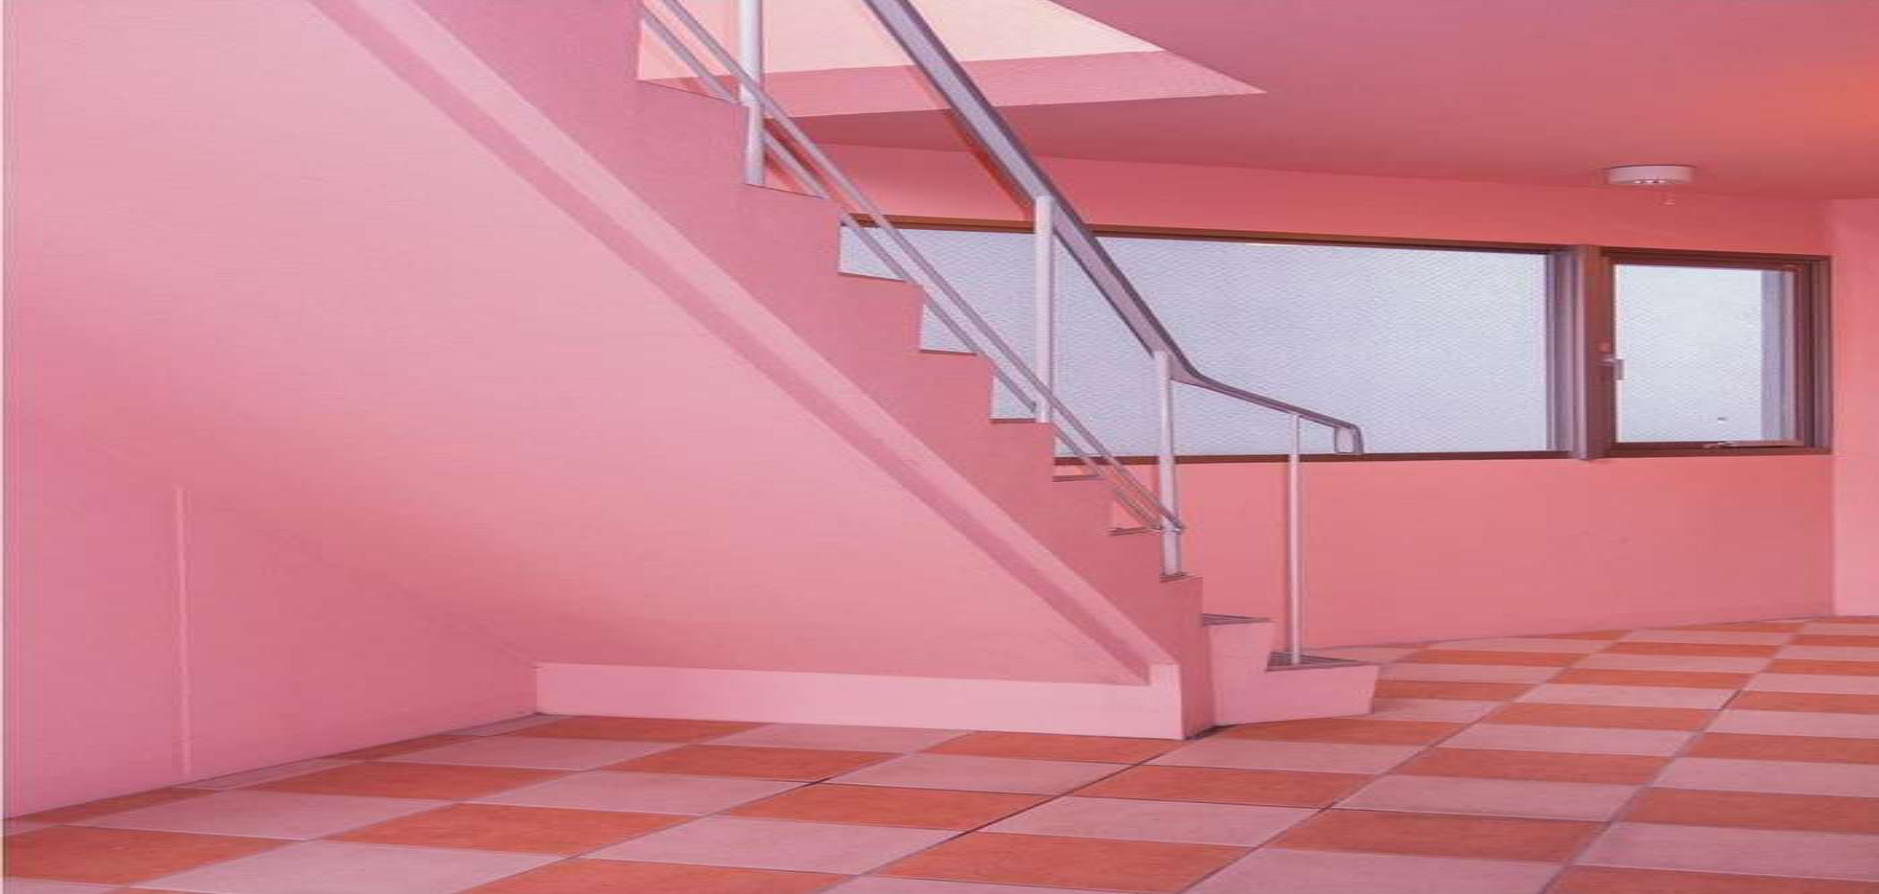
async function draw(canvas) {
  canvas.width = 1879;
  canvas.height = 894;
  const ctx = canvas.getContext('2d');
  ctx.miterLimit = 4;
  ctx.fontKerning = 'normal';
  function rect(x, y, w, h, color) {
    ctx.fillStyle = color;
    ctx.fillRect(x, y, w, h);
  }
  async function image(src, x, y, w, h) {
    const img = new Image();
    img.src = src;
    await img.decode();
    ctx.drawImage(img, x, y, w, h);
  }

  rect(0, 0, 1879, 894, '#fff');
  await image('assets/img1.png', 0, 0, 1879, 894);
}

draw(document.querySelector('canvas'));
